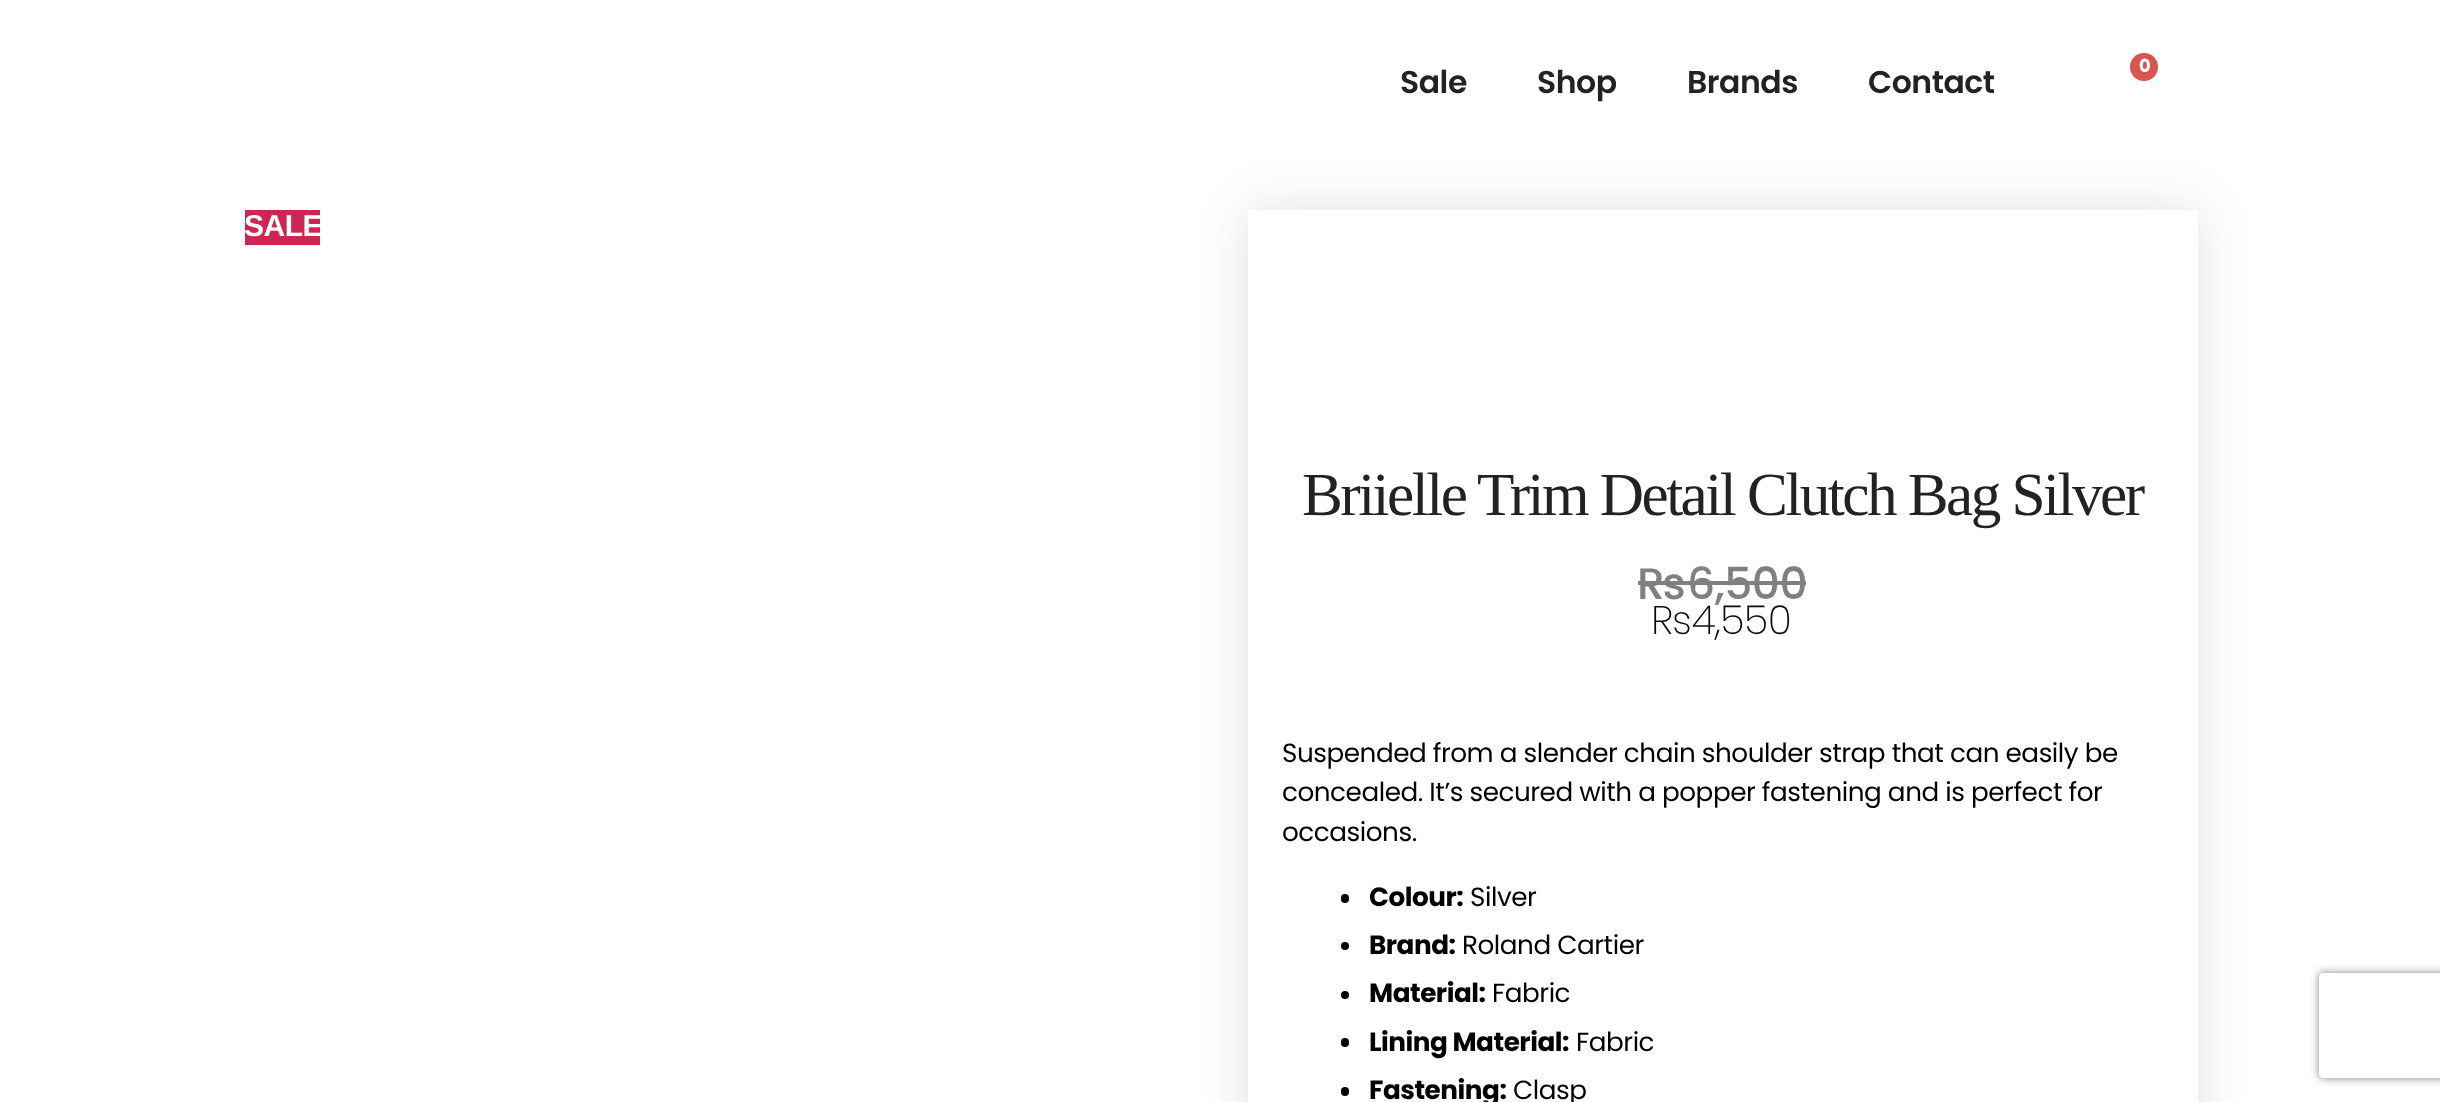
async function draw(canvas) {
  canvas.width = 2440;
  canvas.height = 1102;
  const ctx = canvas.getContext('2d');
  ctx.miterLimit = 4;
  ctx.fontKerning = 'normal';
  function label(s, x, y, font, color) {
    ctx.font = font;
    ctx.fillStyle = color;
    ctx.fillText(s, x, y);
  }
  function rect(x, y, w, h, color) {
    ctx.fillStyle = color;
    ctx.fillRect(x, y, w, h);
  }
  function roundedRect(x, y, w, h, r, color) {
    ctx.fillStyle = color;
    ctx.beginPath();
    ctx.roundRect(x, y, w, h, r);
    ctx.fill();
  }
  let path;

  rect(0, 0, 2440, 1102, '#fff');
  ctx.fillStyle = '#d9534f';
  ctx.beginPath();
  ctx.arc(2144, 67, 14, 0, 2 * Math.PI);
  ctx.fill();
  ctx.letterSpacing = '-0.47px';
  label('0', 2139, 72, 'bold 18px Poppins', '#fff');
  label('Sale', 1400, 93, '600 31.5px Poppins', '#222');
  label('Shop', 1537, 93, '600 31.5px Poppins', '#222');
  label('Brands', 1687, 93, '600 31.5px Poppins', '#222');
  label('Contact', 1868, 93, '600 31.5px Poppins', '#222');
  rect(245, 210, 75, 35, '#cd2653');
  ctx.letterSpacing = '-0.5px';
  label('SALE', 244, 236, 'bold 30px Liberation Sans', '#fff');
  ctx.save();
  path = new Path2D('M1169 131H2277V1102H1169ZM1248 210H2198V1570H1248Z');
  ctx.clip(path, 'evenodd');
  ctx.fillStyle = '#0000001f';
  ctx.filter = 'blur(26px)';
  ctx.beginPath();
  ctx.rect(1248, 210, 950, 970);
  ctx.fill();
  ctx.filter = 'none';
  ctx.restore();
  ctx.letterSpacing = '-2.55px';
  label('Briielle Trim Detail Clutch Bag Silver', 1302, 515, '61.25px Liberation Serif', '#222');
  ctx.letterSpacing = '-0.47px';
  label('₨6,500', 1637, 599, '500 44px Poppins', '#808080');
  rect(1638, 581, 168, 4, '#808080');
  label('₨4,550', 1651, 634, '200 40px Poppins', '#0c0c0c');
  label('Suspended from a slender chain shoulder strap that can easily be', 1282, 762, '26.25px Poppins', '#000');
  label('concealed. It’s secured with a popper fastening and is perfect for', 1282, 801, '26.25px Poppins', '#000');
  label('occasions.', 1282, 841, '26.25px Poppins', '#000');
  roundedRect(1341, 894, 8, 9, 4, '#000');
  label('Colour:', 1369, 906, 'bold 26.25px Poppins', '#000');
  label('Silver', 1470, 906, '26.25px Poppins', '#000');
  ctx.beginPath();
  ctx.arc(1345, 946, 4, 0, 2 * Math.PI);
  ctx.fill();
  label('Brand:', 1369, 954, 'bold 26.25px Poppins', '#000');
  label('Roland Cartier', 1462, 954, '26.25px Poppins', '#000');
  ctx.beginPath();
  ctx.arc(1345, 995, 4, 0, 2 * Math.PI);
  ctx.fill();
  label('Material:', 1369, 1002, 'bold 26.25px Poppins', '#000');
  label('Fabric', 1492, 1002, '26.25px Poppins', '#000');
  roundedRect(1341, 1038, 8, 9, 4, '#000');
  label('Lining Material:', 1369, 1051, 'bold 26.25px Poppins', '#000');
  label('Fabric', 1576, 1051, '26.25px Poppins', '#000');
  roundedRect(1341, 1087, 8, 9, 4, '#000');
  label('Fastening:', 1369, 1099, 'bold 26.25px Poppins', '#000');
  label('Clasp', 1513, 1099, '26.25px Poppins', '#000');
  ctx.save();
  path = new Path2D('M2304 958H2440V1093H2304ZM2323 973H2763C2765 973 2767 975 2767 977V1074C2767 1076 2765 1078 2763 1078H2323C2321 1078 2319 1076 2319 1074V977C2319 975 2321 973 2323 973Z');
  ctx.clip(path, 'evenodd');
  ctx.fillStyle = '#808080';
  ctx.filter = 'blur(4.5px)';
  ctx.beginPath();
  ctx.roundRect(2319, 973, 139, 105, 4);
  ctx.fill();
  ctx.filter = 'none';
  ctx.restore();
}

draw(document.querySelector('canvas'));
